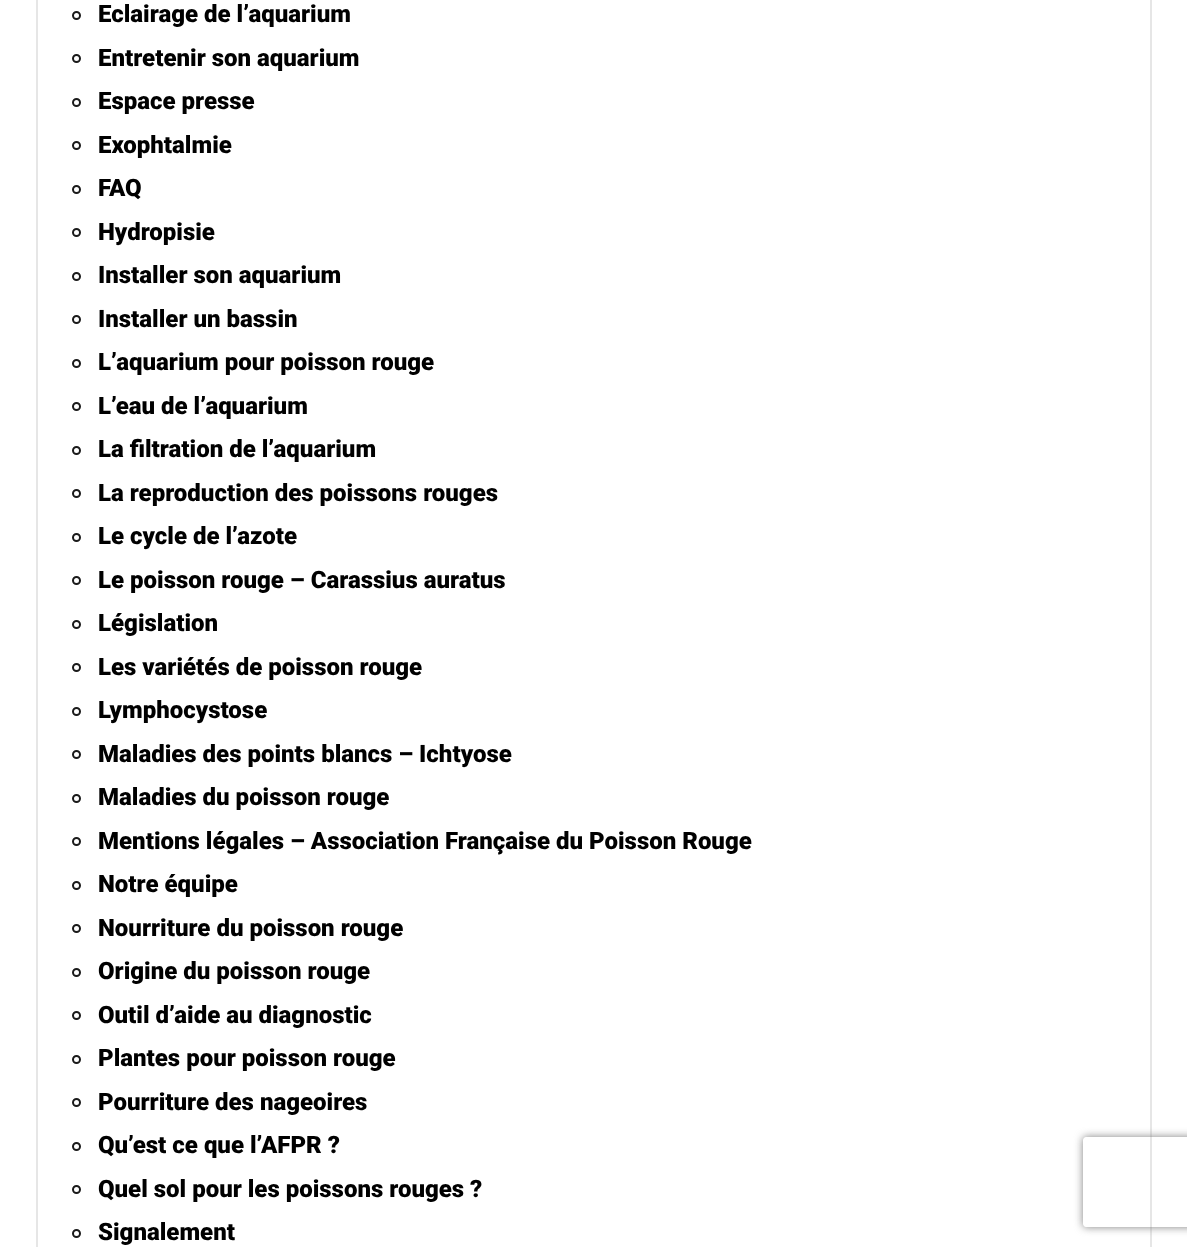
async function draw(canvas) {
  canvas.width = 1187;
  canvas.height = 1247;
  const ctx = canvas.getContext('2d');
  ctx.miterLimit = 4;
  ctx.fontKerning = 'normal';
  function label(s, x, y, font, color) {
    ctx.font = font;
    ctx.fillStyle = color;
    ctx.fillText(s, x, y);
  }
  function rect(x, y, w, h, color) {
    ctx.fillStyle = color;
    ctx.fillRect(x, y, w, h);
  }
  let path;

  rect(0, 0, 1187, 1247, '#fff');
  ctx.strokeStyle = '#e6e6e6';
  ctx.lineWidth = 2;
  ctx.strokeRect(37, -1, 1114, 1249);
  ctx.beginPath();
  ctx.arc(76.5, 15.5, 3.5, 0, 2 * Math.PI);
  ctx.strokeStyle = '#1a1a1a';
  ctx.stroke();
  label('Eclairage de l’aquarium', 98, 22, '900 24px Roboto', '#000');
  ctx.beginPath();
  ctx.arc(76.5, 58.5, 3.5, 0, 2 * Math.PI);
  ctx.stroke();
  label('Entretenir son aquarium', 98, 66, '900 24px Roboto', '#000');
  ctx.beginPath();
  ctx.arc(76.5, 102.5, 3.5, 0, 2 * Math.PI);
  ctx.stroke();
  label('Espace presse', 98, 109, '900 24px Roboto', '#000');
  ctx.beginPath();
  ctx.arc(76.5, 145.5, 3.5, 0, 2 * Math.PI);
  ctx.stroke();
  label('Exophtalmie', 98, 153, '900 24px Roboto', '#000');
  ctx.beginPath();
  ctx.arc(76.5, 189.5, 3.5, 0, 2 * Math.PI);
  ctx.stroke();
  label('FAQ', 98, 196, '900 24px Roboto', '#000');
  ctx.beginPath();
  ctx.arc(76.5, 232.5, 3.5, 0, 2 * Math.PI);
  ctx.stroke();
  label('Hydropisie', 98, 240, '900 24px Roboto', '#000');
  ctx.beginPath();
  ctx.arc(76.5, 276.5, 3.5, 0, 2 * Math.PI);
  ctx.stroke();
  label('Installer son aquarium', 98, 283, '900 24px Roboto', '#000');
  ctx.beginPath();
  ctx.arc(76.5, 319.5, 3.5, 0, 2 * Math.PI);
  ctx.stroke();
  label('Installer un bassin', 98, 327, '900 24px Roboto', '#000');
  ctx.beginPath();
  ctx.arc(76.5, 363.5, 3.5, 0, 2 * Math.PI);
  ctx.stroke();
  label('L’aquarium pour poisson rouge', 98, 370, '900 24px Roboto', '#000');
  ctx.beginPath();
  ctx.arc(76.5, 406.5, 3.5, 0, 2 * Math.PI);
  ctx.stroke();
  label('L’eau de l’aquarium', 98, 414, '900 24px Roboto', '#000');
  ctx.beginPath();
  ctx.arc(76.5, 450.5, 3.5, 0, 2 * Math.PI);
  ctx.stroke();
  label('La filtration de l’aquarium', 98, 457, '900 24px Roboto', '#000');
  ctx.beginPath();
  ctx.arc(76.5, 493.5, 3.5, 0, 2 * Math.PI);
  ctx.stroke();
  label('La reproduction des poissons rouges', 98, 501, '900 24px Roboto', '#000');
  ctx.beginPath();
  ctx.arc(76.5, 537.5, 3.5, 0, 2 * Math.PI);
  ctx.stroke();
  label('Le cycle de l’azote', 98, 544, '900 24px Roboto', '#000');
  ctx.beginPath();
  ctx.arc(76.5, 580.5, 3.5, 0, 2 * Math.PI);
  ctx.stroke();
  label('Le poisson rouge – Carassius auratus', 98, 588, '900 24px Roboto', '#000');
  ctx.beginPath();
  ctx.arc(76.5, 624.5, 3.5, 0, 2 * Math.PI);
  ctx.stroke();
  label('Législation', 98, 631, '900 24px Roboto', '#000');
  ctx.beginPath();
  ctx.arc(76.5, 667.5, 3.5, 0, 2 * Math.PI);
  ctx.stroke();
  label('Les variétés de poisson rouge', 98, 675, '900 24px Roboto', '#000');
  ctx.beginPath();
  ctx.arc(76.5, 711.5, 3.5, 0, 2 * Math.PI);
  ctx.stroke();
  label('Lymphocystose', 98, 718, '900 24px Roboto', '#000');
  ctx.beginPath();
  ctx.arc(76.5, 754.5, 3.5, 0, 2 * Math.PI);
  ctx.stroke();
  label('Maladies des points blancs – Ichtyose', 98, 762, '900 24px Roboto', '#000');
  ctx.beginPath();
  ctx.arc(76.5, 798.5, 3.5, 0, 2 * Math.PI);
  ctx.stroke();
  label('Maladies du poisson rouge', 98, 805, '900 24px Roboto', '#000');
  ctx.beginPath();
  ctx.arc(76.5, 841.5, 3.5, 0, 2 * Math.PI);
  ctx.stroke();
  label('Mentions légales – Association Française du Poisson Rouge', 98, 849, '900 24px Roboto', '#000');
  ctx.beginPath();
  ctx.arc(76.5, 885.5, 3.5, 0, 2 * Math.PI);
  ctx.stroke();
  label('Notre équipe', 98, 892, '900 24px Roboto', '#000');
  ctx.beginPath();
  ctx.arc(76.5, 928.5, 3.5, 0, 2 * Math.PI);
  ctx.stroke();
  label('Nourriture du poisson rouge', 98, 936, '900 24px Roboto', '#000');
  ctx.beginPath();
  ctx.arc(76.5, 972.5, 3.5, 0, 2 * Math.PI);
  ctx.stroke();
  label('Origine du poisson rouge', 98, 979, '900 24px Roboto', '#000');
  ctx.beginPath();
  ctx.arc(76.5, 1015.5, 3.5, 0, 2 * Math.PI);
  ctx.stroke();
  label('Outil d’aide au diagnostic', 98, 1023, '900 24px Roboto', '#000');
  ctx.beginPath();
  ctx.arc(76.5, 1059.5, 3.5, 0, 2 * Math.PI);
  ctx.stroke();
  label('Plantes pour poisson rouge', 98, 1066, '900 24px Roboto', '#000');
  ctx.beginPath();
  ctx.arc(76.5, 1102.5, 3.5, 0, 2 * Math.PI);
  ctx.stroke();
  label('Pourriture des nageoires', 98, 1110, '900 24px Roboto', '#000');
  ctx.beginPath();
  ctx.arc(76.5, 1146.5, 3.5, 0, 2 * Math.PI);
  ctx.stroke();
  label('Qu’est ce que l’AFPR ?', 98, 1153, '900 24px Roboto', '#000');
  ctx.beginPath();
  ctx.arc(76.5, 1189.5, 3.5, 0, 2 * Math.PI);
  ctx.stroke();
  label('Quel sol pour les poissons rouges ?', 98, 1197, '900 24px Roboto', '#000');
  ctx.beginPath();
  ctx.arc(76.5, 1233.5, 3.5, 0, 2 * Math.PI);
  ctx.stroke();
  label('Signalement', 98, 1240, '900 24px Roboto', '#000');
  ctx.save();
  path = new Path2D('M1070 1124H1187V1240H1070ZM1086 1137H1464C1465.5 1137 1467 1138.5 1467 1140V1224C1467 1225.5 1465.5 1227 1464 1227H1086C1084.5 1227 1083 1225.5 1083 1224V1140C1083 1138.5 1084.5 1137 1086 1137Z');
  ctx.clip(path, 'evenodd');
  ctx.fillStyle = '#808080';
  ctx.filter = 'blur(4px)';
  ctx.beginPath();
  ctx.roundRect(1083, 1137, 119, 90, 3);
  ctx.fill();
  ctx.filter = 'none';
  ctx.restore();
}

draw(document.querySelector('canvas'));
